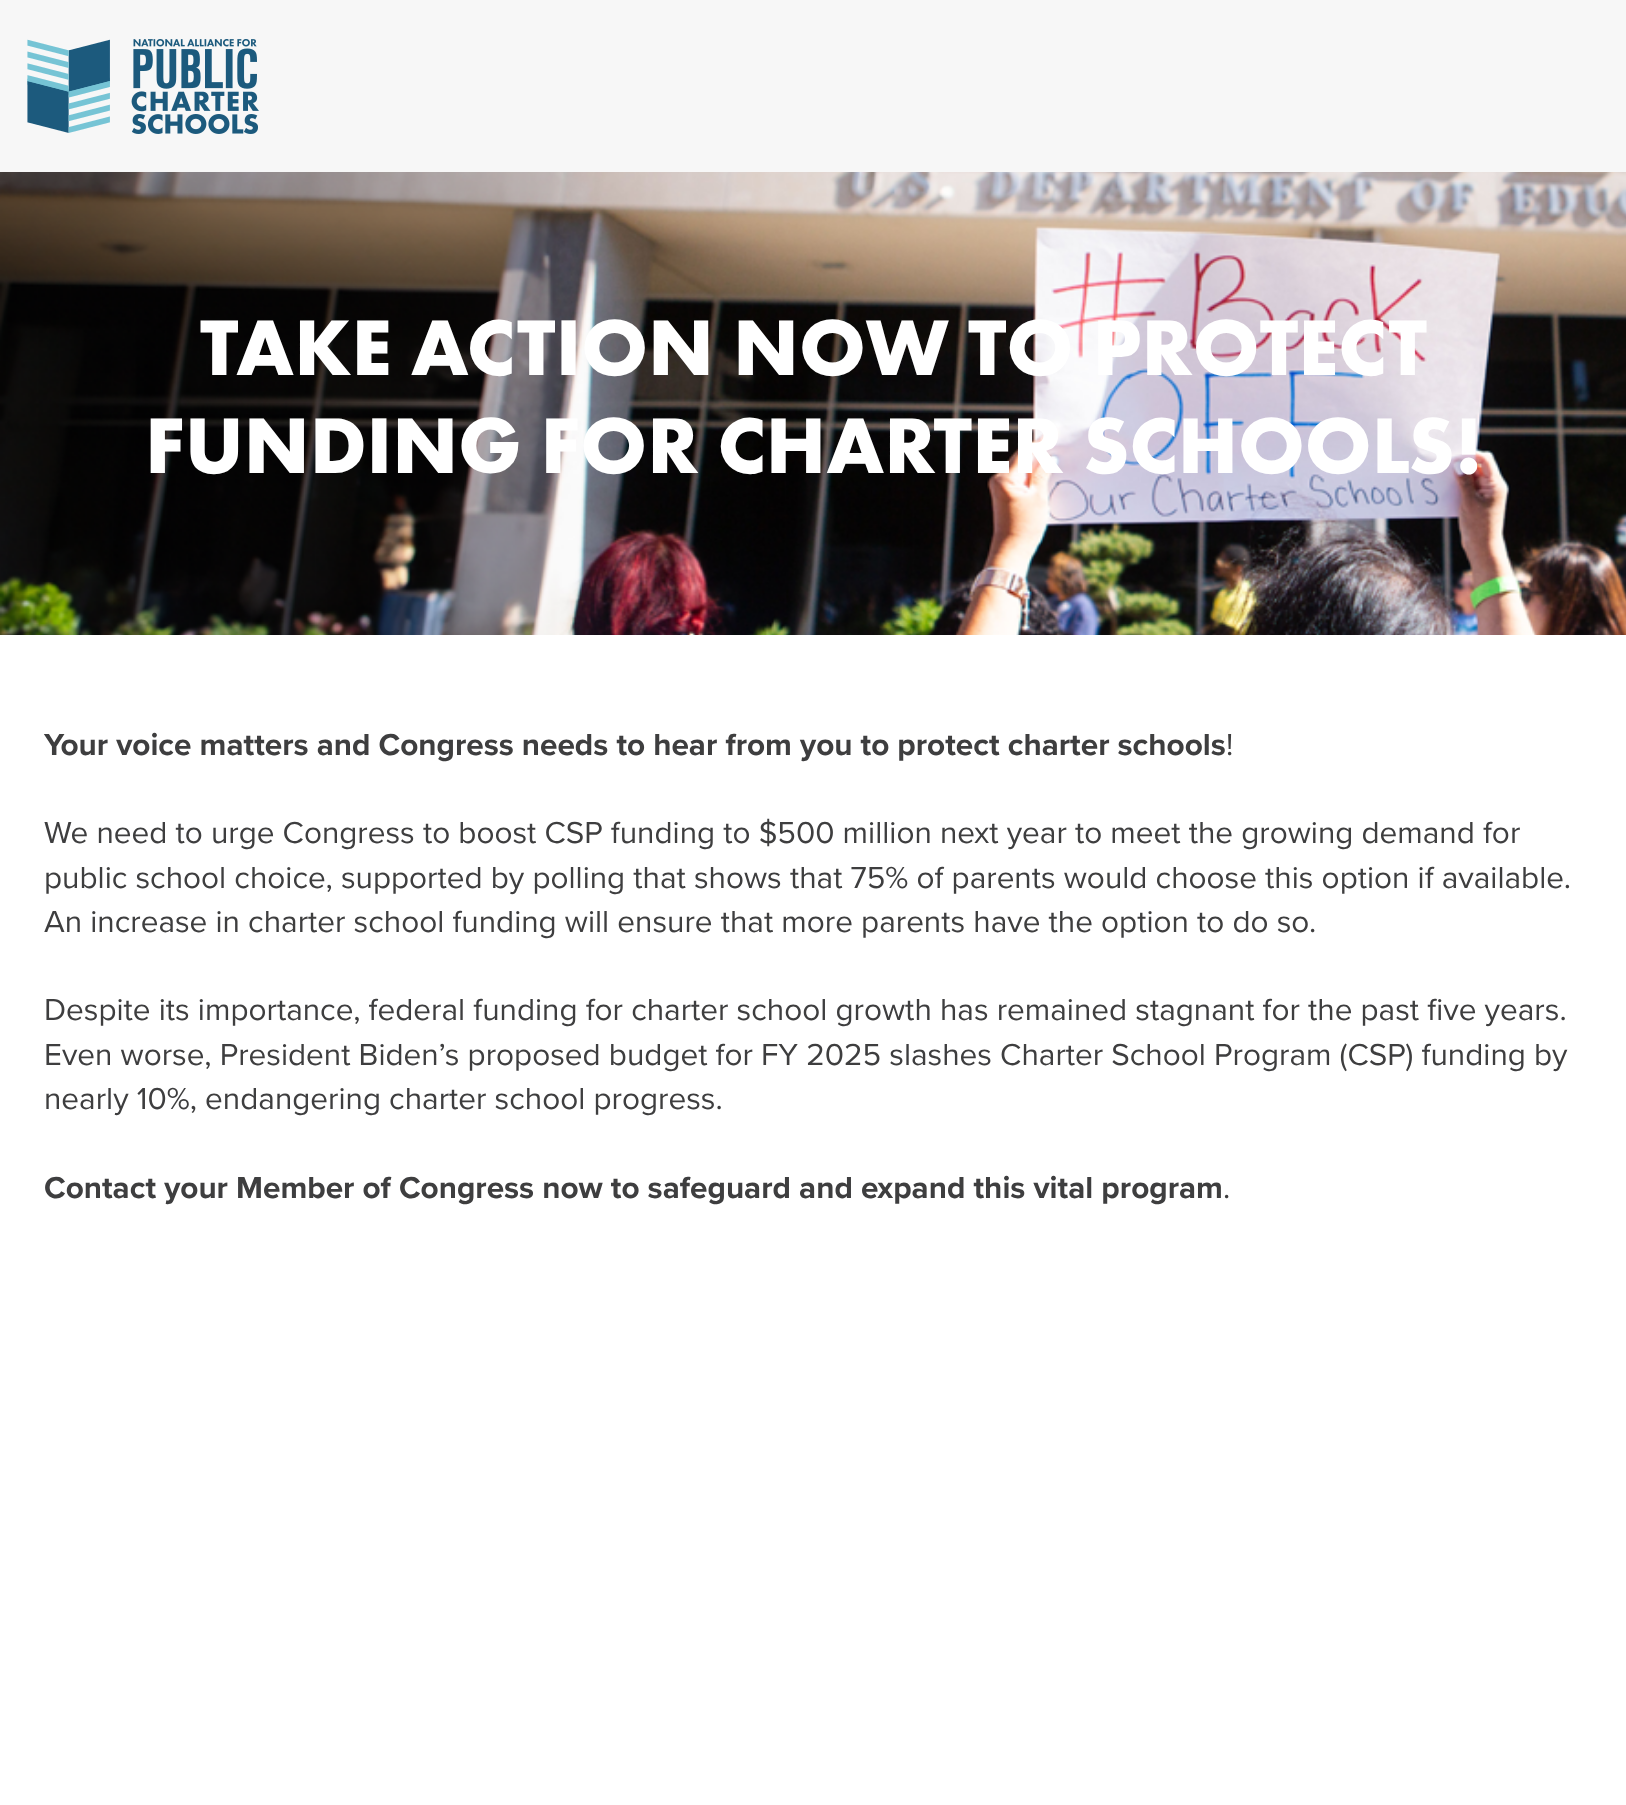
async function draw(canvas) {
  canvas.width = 1626;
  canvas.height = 1805;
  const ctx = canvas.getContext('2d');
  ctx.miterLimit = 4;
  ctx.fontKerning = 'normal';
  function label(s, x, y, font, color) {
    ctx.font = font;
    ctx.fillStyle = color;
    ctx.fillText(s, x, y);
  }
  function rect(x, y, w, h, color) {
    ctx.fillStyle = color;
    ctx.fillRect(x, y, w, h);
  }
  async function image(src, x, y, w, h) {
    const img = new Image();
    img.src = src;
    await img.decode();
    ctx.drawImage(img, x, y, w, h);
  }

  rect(0, 0, 1626, 1805, '#fff');
  rect(0, 0, 1626, 172, '#f7f7f7');
  await image('assets/img1.png', 27, 39, 232, 95);
  await image('assets/img2.png', 0, 172, 1626, 463);
  label('TAKE ACTION NOW TO PROTECT', 200, 375, 'bold 81.9px Futura PT', '#fff');
  label('FUNDING FOR CHARTER SCHOOLS!', 145, 473, 'bold 81.9px Futura PT', '#fff');
  label('Your voice matters and Congress needs to hear from you to protect charter schools', 44, 755, 'bold 31.5px Proxima Nova', '#3e3e3f');
  label('!', 1226, 755, '31.5px Proxima Nova', '#3e3e3f');
  label('We need to urge Congress to boost CSP funding to $500 million next year to meet the growing demand for', 44, 843, '31.5px Proxima Nova', '#3e3e3f');
  label('public school choice, supported by polling that shows that 75% of parents would choose this option if available.', 44, 888, '31.5px Proxima Nova', '#3e3e3f');
  label('An increase in charter school funding will ensure that more parents have the option to do so.', 44, 932, '31.5px Proxima Nova', '#3e3e3f');
  label('Despite its importance, federal funding for charter school growth has remained stagnant for the past five years.', 44, 1020, '31.5px Proxima Nova', '#3e3e3f');
  label('Even worse, President Biden’s proposed budget for FY 2025 slashes Charter School Program (CSP) funding by', 44, 1065, '31.5px Proxima Nova', '#3e3e3f');
  label('nearly 10%, endangering charter school progress.', 44, 1109, '31.5px Proxima Nova', '#3e3e3f');
  label('Contact your Member of Congress now to safeguard and expand this vital program', 44, 1198, 'bold 31.5px Proxima Nova', '#3e3e3f');
  label('.', 1223, 1198, '31.5px Proxima Nova', '#3e3e3f');
}

draw(document.querySelector('canvas'));
